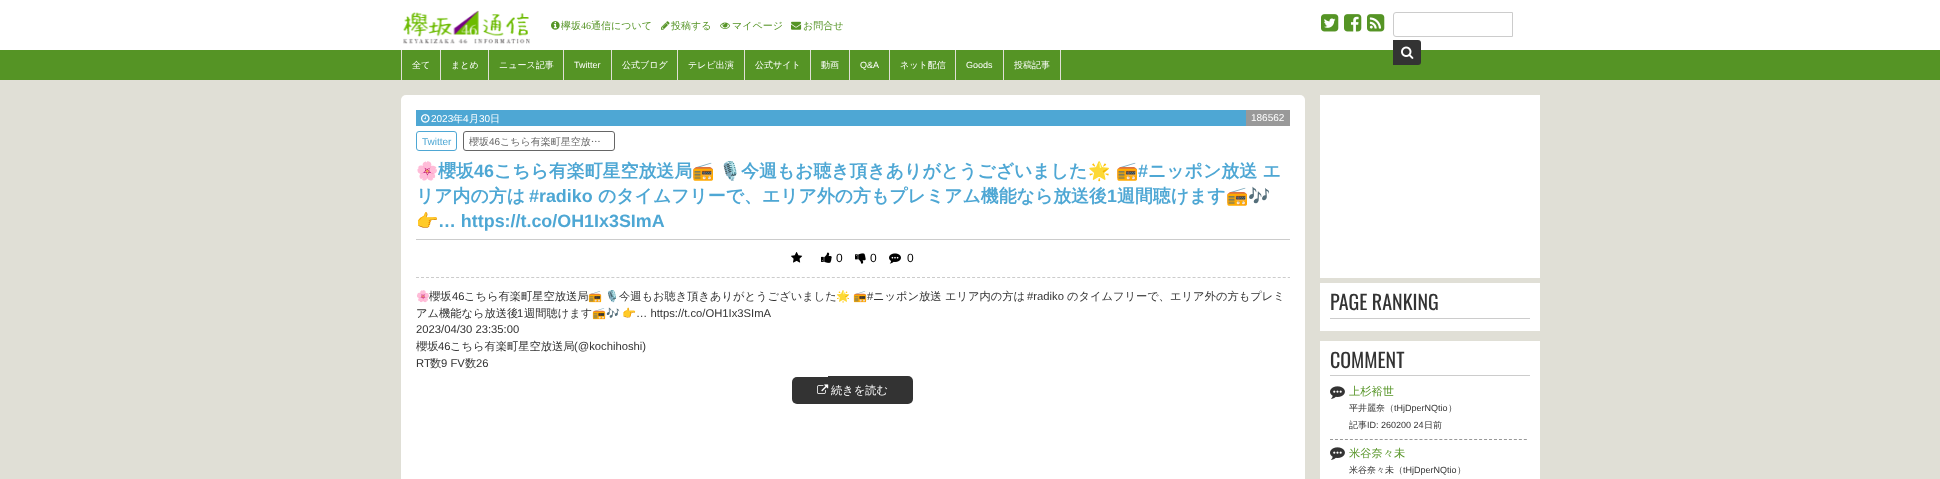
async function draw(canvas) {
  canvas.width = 1940;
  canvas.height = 479;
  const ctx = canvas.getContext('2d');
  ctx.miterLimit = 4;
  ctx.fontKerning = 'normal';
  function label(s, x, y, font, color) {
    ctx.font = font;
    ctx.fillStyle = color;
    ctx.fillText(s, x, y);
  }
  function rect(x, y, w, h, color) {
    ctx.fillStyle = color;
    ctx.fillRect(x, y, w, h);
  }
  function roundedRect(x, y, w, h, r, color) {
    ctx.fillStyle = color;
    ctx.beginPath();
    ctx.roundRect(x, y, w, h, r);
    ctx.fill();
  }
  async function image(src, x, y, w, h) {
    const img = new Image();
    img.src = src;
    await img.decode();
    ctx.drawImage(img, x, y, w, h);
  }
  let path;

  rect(0, 0, 1940, 479, '#e0dfd6');
  rect(0, 0, 1940, 50, '#fff');
  await image('assets/img1.png', 403, 10, 127, 34);
  await image('assets/img2.png', 551, 21, 9, 9);
  label('欅坂', 561, 29, '500 10px WenQuanYi Zen Hei', '#559425');
  label('46', 581, 29, '10px Liberation Serif', '#559425');
  label('通信について', 591, 29, '500 10px WenQuanYi Zen Hei', '#559425');
  await image('assets/img3.png', 661, 21, 9, 9);
  label('投稿する', 671, 29, '500 10px WenQuanYi Zen Hei', '#559425');
  await image('assets/img4.png', 720, 22, 11, 7);
  label('マイページ', 732, 29, '500 10px WenQuanYi Zen Hei', '#559425');
  await image('assets/img5.png', 791, 21, 11, 9);
  label('お問合せ', 803, 29, '500 10px WenQuanYi Zen Hei', '#559425');
  await image('assets/img6.png', 1321, 14, 18, 18);
  await image('assets/img7.png', 1344, 14, 18, 18);
  await image('assets/img8.png', 1367, 14, 18, 18);
  ctx.beginPath();
  ctx.roundRect(1393.5, 12.5, 119, 24, [2.5, 0, 0, 2.5]);
  ctx.strokeStyle = '#ccc';
  ctx.stroke();
  rect(0, 50, 1940, 30, '#559425');
  ctx.fillStyle = '#333';
  ctx.beginPath();
  ctx.roundRect(1393, 40, 28, 25, [0, 3, 3, 0]);
  ctx.fill();
  await image('assets/img9.png', 1401, 46, 13, 13);
  rect(440, 50, 1, 30, '#e0dfd6');
  rect(401, 50, 1, 30, '#e0dfd6');
  label('全て', 412, 68, '500 9px WenQuanYi Zen Hei', '#fff');
  rect(488, 50, 1, 30, '#e0dfd6');
  label('まとめ', 451, 68, '500 9px WenQuanYi Zen Hei', '#fff');
  rect(563, 50, 1, 30, '#e0dfd6');
  label('ニュース記事', 499, 68, '500 9px WenQuanYi Zen Hei', '#fff');
  rect(611, 50, 1, 30, '#e0dfd6');
  label('Twitter', 574, 68, '9px Liberation Sans', '#fff');
  rect(677, 50, 1, 30, '#e0dfd6');
  label('公式ブログ', 622, 68, '500 9px WenQuanYi Zen Hei', '#fff');
  rect(744, 50, 1, 30, '#e0dfd6');
  label('テレビ出演', 688, 68, '500 9px WenQuanYi Zen Hei', '#fff');
  rect(810, 50, 1, 30, '#e0dfd6');
  label('公式サイト', 755, 68, '500 9px WenQuanYi Zen Hei', '#fff');
  rect(849, 50, 1, 30, '#e0dfd6');
  label('動画', 821, 68, '500 9px WenQuanYi Zen Hei', '#fff');
  rect(889, 50, 1, 30, '#e0dfd6');
  label('Q&A', 860, 68, '9px Liberation Sans', '#fff');
  rect(955, 50, 1, 30, '#e0dfd6');
  label('ネット配信', 900, 68, '500 9px WenQuanYi Zen Hei', '#fff');
  rect(1003, 50, 1, 30, '#e0dfd6');
  label('Goods', 966, 68, '9px Liberation Sans', '#fff');
  rect(1060, 50, 1, 30, '#e0dfd6');
  label('投稿記事', 1014, 68, '500 9px WenQuanYi Zen Hei', '#fff');
  roundedRect(401, 95, 904, 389, 5, '#fff');
  rect(416, 110, 830, 16, '#4ea7d4');
  await image('assets/img10.png', 421, 114, 9, 9);
  label('2023', 431, 122, '10px Liberation Sans', '#fff');
  label('年', 453, 122, '500 10px WenQuanYi Zen Hei', '#fff');
  label('4', 463, 122, '10px Liberation Sans', '#fff');
  label('月', 469, 122, '500 10px WenQuanYi Zen Hei', '#fff');
  label('30', 479, 122, '10px Liberation Sans', '#fff');
  label('日', 490, 122, '500 10px WenQuanYi Zen Hei', '#fff');
  rect(1246, 110, 44, 16, '#999');
  label('186562', 1251, 121, '10px Liberation Sans', '#fff');
  ctx.beginPath();
  ctx.roundRect(416.5, 131.5, 40, 19, 2.5);
  ctx.strokeStyle = '#4ea7d4';
  ctx.stroke();
  label('Twitter', 422, 145, '10px Liberation Sans', '#4ea7d4');
  ctx.beginPath();
  ctx.roundRect(463.5, 131.5, 151, 19, 2.5);
  ctx.strokeStyle = '#666';
  ctx.stroke();
  label('櫻坂', 469, 145, '500 10px WenQuanYi Zen Hei', '#666');
  label('46', 489, 145, '10px Liberation Sans', '#666');
  label('こちら有楽町星空放…', 500, 145, '500 10px WenQuanYi Zen Hei', '#666');
  rect(416, 239, 874, 1, '#ccc');
  label('🌸', 416, 177, 'bold 17.9px Noto Color Emoji', '#4ea7d4');
  label('櫻坂', 438, 177, 'bold 17.9px WenQuanYi Zen Hei', '#4ea7d4');
  label('46', 474, 177, 'bold 17.9px Liberation Sans', '#4ea7d4');
  label('こちら有楽町星空放送局', 494, 177, 'bold 17.9px WenQuanYi Zen Hei', '#4ea7d4');
  label('📻', 692, 177, 'bold 17.9px Noto Color Emoji', '#4ea7d4');
  label('🎙', 719, 177, 'bold 17.9px Noto Color Emoji', '#4ea7d4');
  label('今週もお聴き頂きありがとうございました', 741, 177, 'bold 17.9px WenQuanYi Zen Hei', '#4ea7d4');
  label('🌟', 1088, 177, 'bold 17.9px Noto Color Emoji', '#4ea7d4');
  label('📻', 1116, 177, 'bold 17.9px Noto Color Emoji', '#4ea7d4');
  label('#', 1138, 177, 'bold 17.9px Liberation Sans', '#4ea7d4');
  label('ニッポン放送 エ', 1148, 177, 'bold 17.9px WenQuanYi Zen Hei', '#4ea7d4');
  label('リア内の方は', 416, 202, 'bold 17.9px WenQuanYi Zen Hei', '#4ea7d4');
  label('#radiko', 529, 202, 'bold 17.9px Liberation Sans', '#4ea7d4');
  label('のタイムフリーで、エリア外の方もプレミアム機能なら放送後', 598, 202, 'bold 17.9px WenQuanYi Zen Hei', '#4ea7d4');
  label('1', 1107, 202, 'bold 17.9px Liberation Sans', '#4ea7d4');
  label('週間聴けます', 1117, 202, 'bold 17.9px WenQuanYi Zen Hei', '#4ea7d4');
  label('📻🎶', 1226, 202, 'bold 17.9px Noto Color Emoji', '#4ea7d4');
  label('👉', 416, 227, 'bold 17.9px Noto Color Emoji', '#4ea7d4');
  label('… https://t.co/OH1Ix3SImA', 438, 227, 'bold 17.9px Liberation Sans', '#4ea7d4');
  await image('assets/img11.png', 791, 252, 12, 11);
  await image('assets/img12.png', 821, 252, 11, 11);
  label('0', 836, 262, '12px Liberation Sans', '#000');
  await image('assets/img13.png', 855, 253, 11, 11);
  label('0', 870, 262, '12px Liberation Sans', '#000');
  await image('assets/img14.png', 889, 253, 12, 11);
  label('0', 907, 262, '12px Liberation Sans', '#000');
  path = new Path2D('M416 277.5H1290');
  ctx.strokeStyle = '#ccc';
  ctx.setLineDash([3, 2.01]);
  ctx.stroke(path);
  label('🌸', 416, 300, '11.25px Noto Color Emoji', '#333');
  label('櫻坂', 429, 300, '500 11.25px WenQuanYi Zen Hei', '#333');
  label('46', 452, 300, '11.25px Liberation Sans', '#333');
  label('こちら有楽町星空放送局', 464, 300, '500 11.25px WenQuanYi Zen Hei', '#333');
  label('📻', 588, 300, '11.25px Noto Color Emoji', '#333');
  label('🎙', 605, 300, '11.25px Noto Color Emoji', '#333');
  label('今週もお聴き頂きありがとうございました', 619, 300, '500 11.25px WenQuanYi Zen Hei', '#333');
  label('🌟', 836, 300, '11.25px Noto Color Emoji', '#333');
  label('📻', 853, 300, '11.25px Noto Color Emoji', '#333');
  label('#', 867, 300, '11.25px Liberation Sans', '#333');
  label('ニッポン放送 エリア内の方は', 873, 300, '500 11.25px WenQuanYi Zen Hei', '#333');
  label('#radiko', 1027, 300, '11.25px Liberation Sans', '#333');
  label('のタイムフリーで、エリア外の方もプレミ', 1067, 300, '500 11.25px WenQuanYi Zen Hei', '#333');
  label('アム機能なら放送後', 416, 317, '500 11.25px WenQuanYi Zen Hei', '#333');
  label('1', 517, 317, '11.25px Liberation Sans', '#333');
  label('週間聴けます', 524, 317, '500 11.25px WenQuanYi Zen Hei', '#333');
  label('📻🎶', 592, 317, '11.25px Noto Color Emoji', '#333');
  label('👉', 622, 317, '11.25px Noto Color Emoji', '#333');
  label('… https://t.co/OH1Ix3SImA', 636, 317, '11.25px Liberation Sans', '#333');
  label('2023/04/30 23:35:00', 416, 333, '11.25px Liberation Sans', '#333');
  label('櫻坂', 416, 350, '500 11.25px WenQuanYi Zen Hei', '#333');
  label('46', 438, 350, '11.25px Liberation Sans', '#333');
  label('こちら有楽町星空放送局', 450, 350, '500 11.25px WenQuanYi Zen Hei', '#333');
  label('(@kochihoshi)', 574, 350, '11.25px Liberation Sans', '#333');
  label('RT', 416, 367, '11.25px Liberation Sans', '#333');
  label('数', 430, 367, '500 11.25px WenQuanYi Zen Hei', '#333');
  label('9 FV', 441, 367, '11.25px Liberation Sans', '#333');
  label('数', 465, 367, '500 11.25px WenQuanYi Zen Hei', '#333');
  label('26', 476, 367, '11.25px Liberation Sans', '#333');
  ctx.beginPath();
  ctx.roundRect(792, 377, 36, 27, [5, 0, 0, 5]);
  ctx.fill();
  ctx.beginPath();
  ctx.roundRect(828, 376, 85, 28, [0, 5, 5, 0]);
  ctx.fill();
  await image('assets/img15.png', 817, 384, 12, 10);
  label('続きを読む', 831, 394, '500 11.25px WenQuanYi Zen Hei', '#fff');
  rect(1320, 95, 220, 183, '#fff');
  rect(1320, 283, 220, 48, '#fff');
  rect(1330, 318, 200, 1, '#ccc');
  label('PAGE RANKING', 1330, 310, '20px Oswald', '#333');
  rect(1320, 341, 220, 138, '#fff');
  rect(1330, 375, 200, 1, '#ccc');
  label('COMMENT', 1330, 368, '20px Oswald', '#333');
  path = new Path2D('M1330 439.5H1527');
  ctx.strokeStyle = '#999';
  ctx.setLineDash([3, 1.97]);
  ctx.stroke(path);
  await image('assets/img16.png', 1330, 386, 15, 13);
  label('上杉裕世', 1349, 395, '500 11.25px WenQuanYi Zen Hei', '#559425');
  label('平井麗奈（', 1349, 411, '500 9px WenQuanYi Zen Hei', '#333');
  label('tHjDperNQtio', 1394, 411, '9px Liberation Sans', '#333');
  label('）', 1448, 411, '500 9px WenQuanYi Zen Hei', '#333');
  label('記事', 1349, 428, '500 9px WenQuanYi Zen Hei', '#333');
  label('ID: 260200 24', 1367, 428, '9px Liberation Sans', '#333');
  label('日前', 1424, 428, '500 9px WenQuanYi Zen Hei', '#333');
  await image('assets/img16.png', 1330, 447, 15, 13);
  label('米谷奈々未', 1349, 457, '500 11.25px WenQuanYi Zen Hei', '#559425');
  label('米谷奈々未（', 1349, 473, '500 9px WenQuanYi Zen Hei', '#333');
  label('tHjDperNQtio', 1403, 473, '9px Liberation Sans', '#333');
  label('）', 1457, 473, '500 9px WenQuanYi Zen Hei', '#333');
}

draw(document.querySelector('canvas'));
